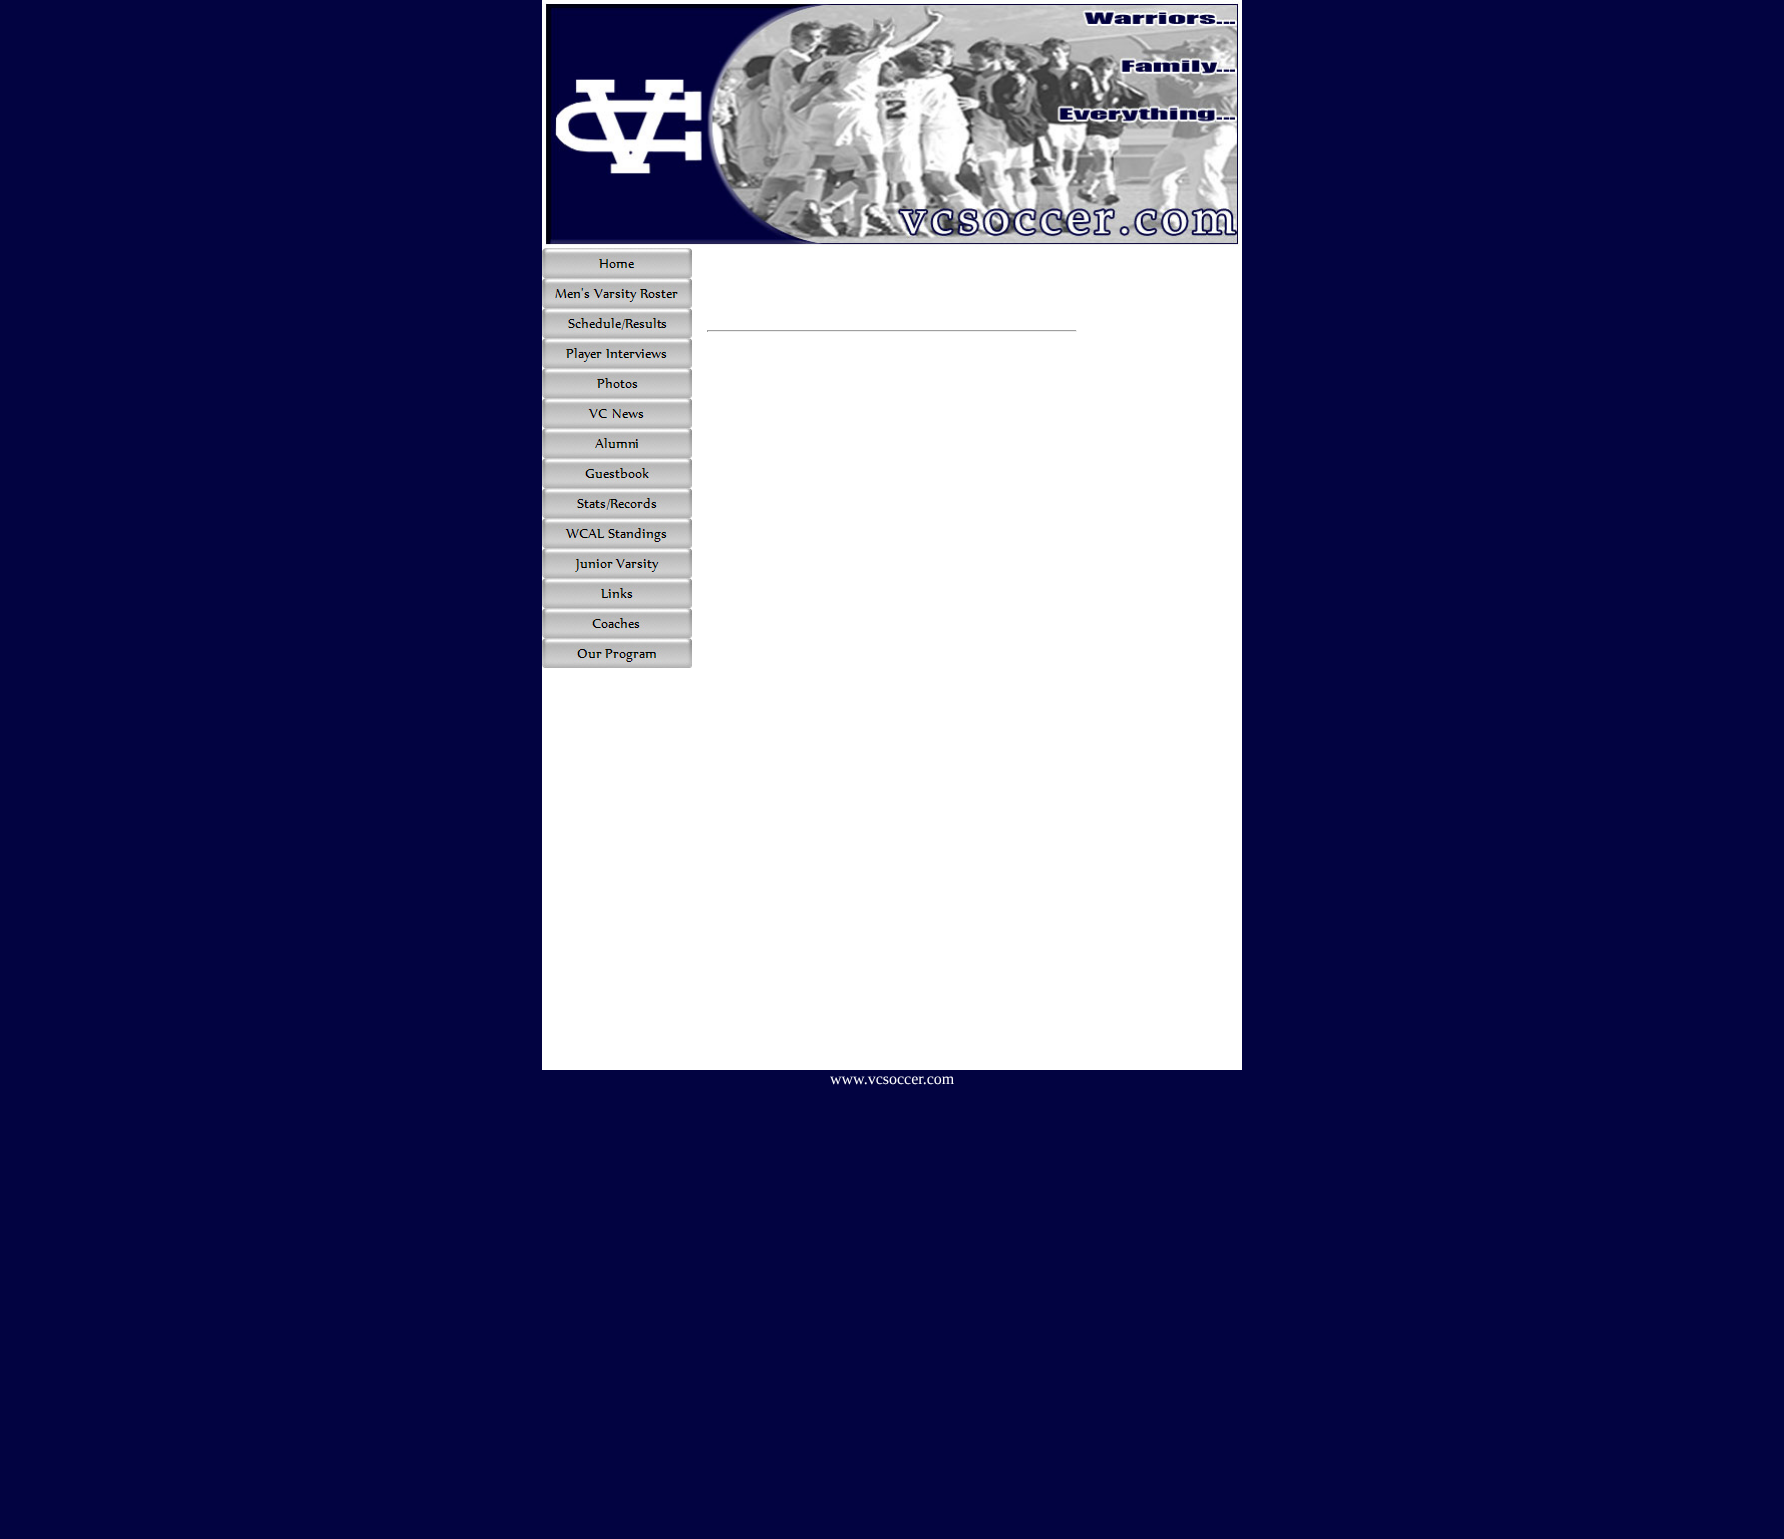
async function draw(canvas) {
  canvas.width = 1784;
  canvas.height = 1539;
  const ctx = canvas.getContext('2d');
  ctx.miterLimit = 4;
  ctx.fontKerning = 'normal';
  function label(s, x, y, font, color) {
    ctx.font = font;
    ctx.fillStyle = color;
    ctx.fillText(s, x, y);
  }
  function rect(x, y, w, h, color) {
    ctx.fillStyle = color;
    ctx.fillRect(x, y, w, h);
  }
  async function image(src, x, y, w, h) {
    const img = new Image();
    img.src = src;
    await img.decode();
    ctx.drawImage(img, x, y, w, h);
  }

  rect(0, 0, 1784, 1539, '#020341');
  rect(542, 248, 700, 822, '#fff');
  await image('assets/img1.png', 542, 0, 700, 248);
  await image('assets/img2.png', 542, 248, 150, 30);
  await image('assets/img3.png', 542, 278, 150, 30);
  await image('assets/img4.png', 542, 308, 150, 30);
  await image('assets/img5.png', 542, 338, 150, 30);
  await image('assets/img6.png', 542, 368, 150, 30);
  await image('assets/img7.png', 542, 398, 150, 30);
  await image('assets/img8.png', 542, 428, 150, 30);
  await image('assets/img9.png', 542, 458, 150, 30);
  await image('assets/img10.png', 542, 488, 150, 30);
  await image('assets/img11.png', 542, 518, 150, 30);
  await image('assets/img12.png', 542, 548, 150, 30);
  await image('assets/img13.png', 542, 578, 150, 30);
  await image('assets/img14.png', 542, 608, 150, 30);
  await image('assets/img15.png', 542, 638, 150, 30);
  rect(707, 330, 370, 1, '#9f9f9f');
  rect(1076, 330, 1, 2, '#eee');
  rect(707, 331, 370, 1, '#eee');
  rect(707, 330, 1, 2, '#9f9f9f');
  label('www.vcsoccer.com', 830, 1084, '16px Liberation Serif', '#fff');
}

draw(document.querySelector('canvas'));
